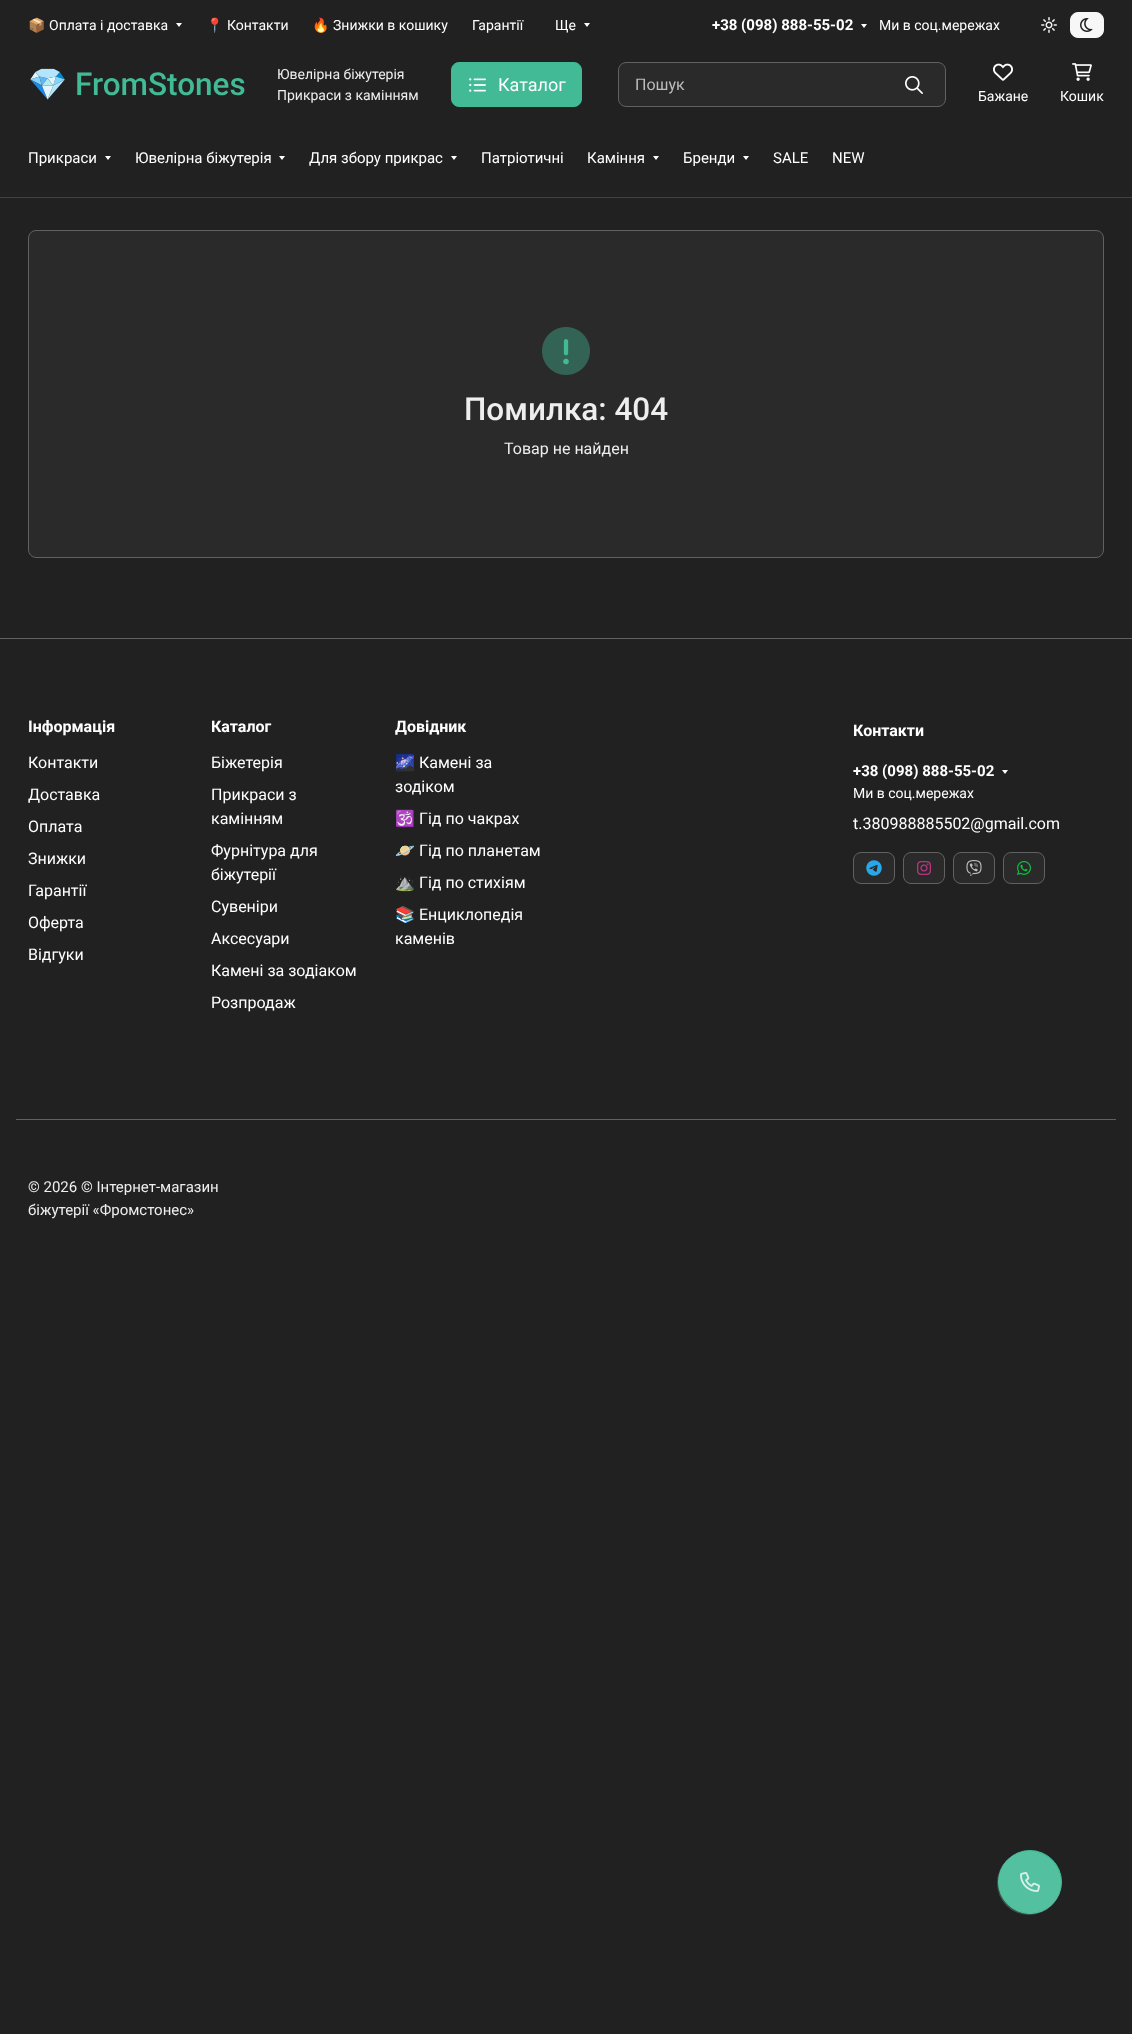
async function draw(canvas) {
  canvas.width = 1132;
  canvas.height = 2034;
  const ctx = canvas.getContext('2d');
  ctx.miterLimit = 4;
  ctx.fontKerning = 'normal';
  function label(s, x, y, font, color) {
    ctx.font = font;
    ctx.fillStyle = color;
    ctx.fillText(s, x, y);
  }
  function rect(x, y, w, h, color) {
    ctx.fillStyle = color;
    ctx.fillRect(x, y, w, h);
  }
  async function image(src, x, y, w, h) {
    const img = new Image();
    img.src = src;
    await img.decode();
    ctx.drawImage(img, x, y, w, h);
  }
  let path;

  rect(0, 0, 1132, 2034, '#212121');
  rect(0, 197, 1132, 1, '#424242');
  label('📦', 28, 30, '14px Noto Color Emoji', '#fff');
  label('Оплата і доставка', 49, 30, '14px Roboto', '#fff');
  path = new Path2D('M176 23H182L179 27Z');
  ctx.fill(path);
  label('📍', 206, 30, '14px Noto Color Emoji', '#fff');
  label('Контакти', 227, 30, '14px Roboto', '#fff');
  label('🔥', 312, 30, '14px Noto Color Emoji', '#fff');
  label('Знижки в кошику', 333, 30, '14px Roboto', '#fff');
  label('Гарантії', 472, 30, '14px Roboto', '#fff');
  label('Ще', 555, 30, '14px Roboto', '#fff');
  path = new Path2D('M584 23H590L587 27Z');
  ctx.fill(path);
  label('+38 (098) 888-55-02', 712, 30, 'bold 15px Roboto', '#fff');
  path = new Path2D('M861 24H867L864 28Z');
  ctx.fill(path);
  label('Ми в соц.мережах', 879, 30, '14px Roboto', '#fff');
  await image('assets/img1.png', 1041, 17, 16, 16);
  ctx.fillStyle = '#f7f7f7';
  ctx.beginPath();
  ctx.roundRect(1070.5, 12.5, 33, 25, 7.5);
  ctx.fill();
  ctx.strokeStyle = '#f6f6f6';
  ctx.stroke();
  await image('assets/img2.png', 1080, 18, 13, 14);
  label('💎', 28, 95, '31.5px Noto Color Emoji', '#42ba96');
  label('FromStones', 75, 95, '500 31.5px Roboto', '#42ba96');
  label('Ювелірна біжутерія', 277, 79, '14px Roboto', '#eee');
  label('Прикраси з камінням', 277, 100, '14px Roboto', '#eee');
  ctx.fillStyle = '#42ba96';
  ctx.beginPath();
  ctx.roundRect(451.5, 62.5, 130, 44, 7.5);
  ctx.fill();
  ctx.strokeStyle = '#42ba96';
  ctx.stroke();
  await image('assets/img3.png', 469, 78, 17, 14);
  label('Каталог', 498, 91, '18px Roboto', '#fff');
  ctx.fillStyle = '#2a2a2a';
  ctx.beginPath();
  ctx.roundRect(618.5, 62.5, 327, 44, 7.5);
  ctx.fill();
  ctx.strokeStyle = '#616161';
  ctx.stroke();
  label('Пошук', 635, 90, '16px Roboto', '#bdbdbd');
  await image('assets/img4.png', 905, 76, 18, 18);
  await image('assets/img5.png', 993, 63, 20, 18);
  label('Бажане', 978, 101, '14px Roboto', '#fff');
  await image('assets/img6.png', 1072, 63, 20, 18);
  label('Кошик', 1060, 101, '14px Roboto', '#fff');
  label('Прикраси', 28, 163, '15px Roboto', '#fff');
  path = new Path2D('M105 156H111L108 160Z');
  ctx.fill(path);
  label('Ювелірна біжутерія', 135, 163, '15px Roboto', '#fff');
  path = new Path2D('M279 156H285L282 160Z');
  ctx.fill(path);
  label('Для збору прикрас', 309, 163, '15px Roboto', '#fff');
  path = new Path2D('M451 156H457L454 160Z');
  ctx.fill(path);
  label('Патріотичні', 481, 163, '15px Roboto', '#fff');
  label('Каміння', 587, 163, '15px Roboto', '#fff');
  path = new Path2D('M653 156H659L656 160Z');
  ctx.fill(path);
  label('Бренди', 683, 163, '15px Roboto', '#fff');
  path = new Path2D('M743 156H749L746 160Z');
  ctx.fill(path);
  label('SALE', 773, 163, '15px Roboto', '#fff');
  label('NEW', 832, 163, '15px Roboto', '#fff');
  ctx.fillStyle = '#2a2a2a';
  ctx.beginPath();
  ctx.roundRect(28.5, 230.5, 1075, 327, 7.5);
  ctx.fill();
  ctx.stroke();
  await image('assets/img7.png', 542, 327, 48, 48);
  label('Помилка: 404', 464, 420, '500 31.5px Roboto', '#eee');
  label('Товар не найден', 504, 454, '16px Roboto', '#eee');
  rect(0, 638, 1132, 1, '#616161');
  label('Інформація', 28, 732, 'bold 16px Roboto', '#fff');
  label('Контакти', 28, 768, '16px Roboto', '#fff');
  label('Доставка', 28, 800, '16px Roboto', '#fff');
  label('Оплата', 28, 832, '16px Roboto', '#fff');
  label('Знижки', 28, 864, '16px Roboto', '#fff');
  label('Гарантії', 28, 896, '16px Roboto', '#fff');
  label('Оферта', 28, 928, '16px Roboto', '#fff');
  label('Відгуки', 28, 960, '16px Roboto', '#fff');
  label('Каталог', 211, 732, 'bold 16px Roboto', '#fff');
  label('Біжетерія', 211, 768, '16px Roboto', '#fff');
  label('Прикраси з', 211, 800, '16px Roboto', '#fff');
  label('камінням', 211, 824, '16px Roboto', '#fff');
  label('Фурнітура для', 211, 856, '16px Roboto', '#fff');
  label('біжутерії', 211, 880, '16px Roboto', '#fff');
  label('Сувеніри', 211, 912, '16px Roboto', '#fff');
  label('Аксесуари', 211, 944, '16px Roboto', '#fff');
  label('Камені за зодіаком', 211, 976, '16px Roboto', '#fff');
  label('Розпродаж', 211, 1008, '16px Roboto', '#fff');
  label('Довідник', 395, 732, 'bold 16px Roboto', '#fff');
  label('🌌', 395, 768, '16px Noto Color Emoji', '#fff');
  label('Камені за', 419, 768, '16px Roboto', '#fff');
  label('зодіком', 395, 792, '16px Roboto', '#fff');
  label('🕉️', 395, 824, '16px Noto Color Emoji', '#fff');
  label('Гід по чакрах', 419, 824, '16px Roboto', '#fff');
  label('🪐', 395, 856, '16px Noto Color Emoji', '#fff');
  label('Гід по планетам', 419, 856, '16px Roboto', '#fff');
  label('⛰️', 395, 888, '16px Noto Color Emoji', '#fff');
  label('Гід по стихіям', 419, 888, '16px Roboto', '#fff');
  label('📚', 395, 920, '16px Noto Color Emoji', '#fff');
  label('Енциклопедія', 419, 920, '16px Roboto', '#fff');
  label('каменів', 395, 944, '16px Roboto', '#fff');
  label('Контакти', 853, 736, 'bold 16px Roboto', '#fff');
  label('+38 (098) 888-55-02', 853, 776, 'bold 15px Roboto', '#fff');
  path = new Path2D('M1002 770H1008L1005 774Z');
  ctx.fill(path);
  label('Ми в соц.мережах', 853, 798, '14px Roboto', '#fff');
  label('t.380988885502@gmail.com', 853, 829, '16px Roboto', '#fff');
  ctx.fillStyle = '#2a2a2a';
  ctx.beginPath();
  ctx.roundRect(853.5, 852.5, 41, 31, 7.5);
  ctx.fill();
  ctx.stroke();
  await image('assets/img8.png', 866, 860, 16, 16);
  ctx.beginPath();
  ctx.roundRect(903.5, 852.5, 41, 31, 7.5);
  ctx.fill();
  ctx.stroke();
  await image('assets/img9.png', 917, 861, 14, 14);
  ctx.beginPath();
  ctx.roundRect(953.5, 852.5, 41, 31, 7.5);
  ctx.fill();
  ctx.stroke();
  await image('assets/img10.png', 966, 860, 16, 16);
  ctx.beginPath();
  ctx.roundRect(1003.5, 852.5, 41, 31, 7.5);
  ctx.fill();
  ctx.stroke();
  await image('assets/img11.png', 1017, 861, 14, 14);
  rect(16, 1119, 1100, 1, '#616161');
  label('© 2026 © Інтернет-магазин', 28, 1192, '15px Roboto', '#eee');
  label('біжутерії «Фромстонес»', 28, 1215, '15px Roboto', '#eee');
  ctx.fillStyle = '#42ba96';
  ctx.beginPath();
  ctx.arc(1030, 1882, 31.5, 0, 2 * Math.PI);
  ctx.fill();
  ctx.strokeStyle = '#42ba96';
  ctx.stroke();
  await image('assets/img12.png', 1020, 1872, 20, 20);
  ctx.fillStyle = '#7aceb54d';
  ctx.beginPath();
  ctx.arc(1029, 1883, 32, 0, 2 * Math.PI);
  ctx.fill();
}

draw(document.querySelector('canvas'));
